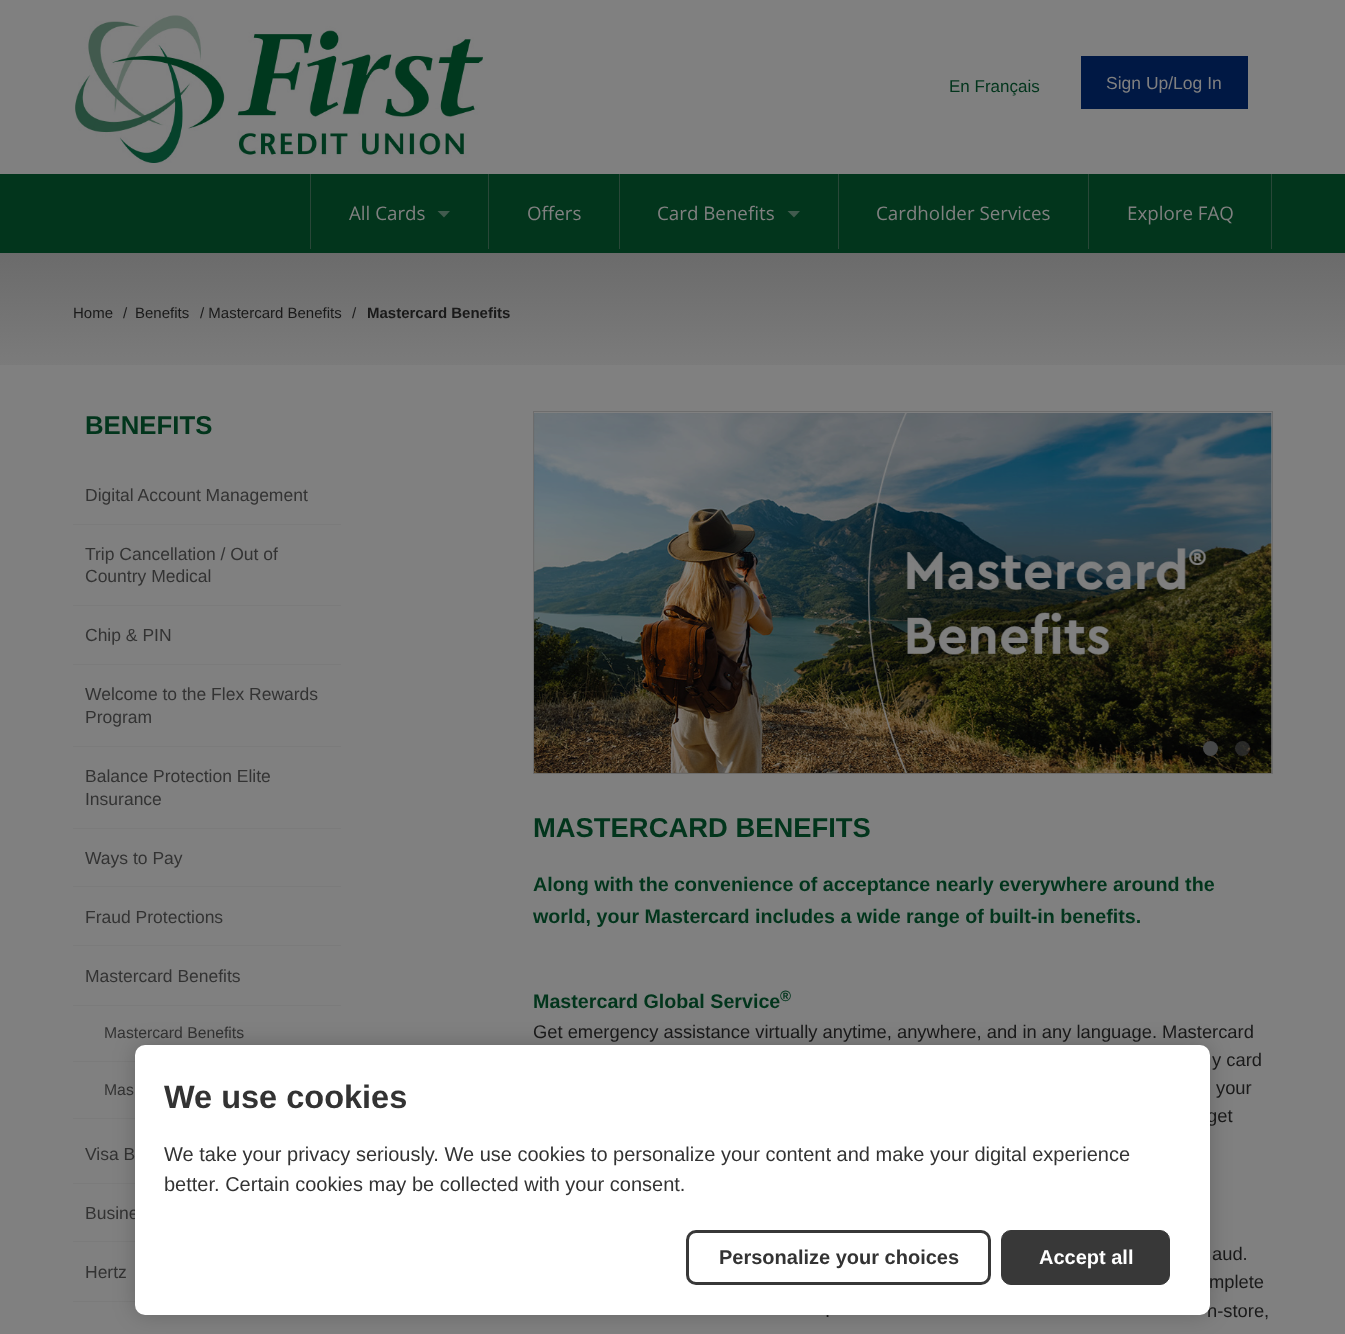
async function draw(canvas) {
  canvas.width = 1345;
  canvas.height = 1334;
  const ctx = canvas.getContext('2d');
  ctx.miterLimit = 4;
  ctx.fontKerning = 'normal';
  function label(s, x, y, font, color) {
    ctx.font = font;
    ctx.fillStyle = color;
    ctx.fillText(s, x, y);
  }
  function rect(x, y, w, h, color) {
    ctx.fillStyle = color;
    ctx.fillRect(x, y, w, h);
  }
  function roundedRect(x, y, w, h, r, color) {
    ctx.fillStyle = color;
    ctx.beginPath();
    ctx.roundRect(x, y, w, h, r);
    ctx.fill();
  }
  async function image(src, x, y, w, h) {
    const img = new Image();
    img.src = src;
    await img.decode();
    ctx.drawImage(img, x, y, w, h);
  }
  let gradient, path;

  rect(0, 0, 1345, 1334, '#808080');
  await image('assets/img1.png', 75, 15, 408, 148);
  label('En Français', 949, 92, '17px Liberation Sans', '#02351c');
  rect(1081, 56, 167, 53, '#001844');
  label('Sign Up/Log In', 1106, 89, '17.5px Liberation Sans', '#808080');
  rect(0, 174, 1345, 79, '#02351c');
  rect(310, 174, 1, 75, '#294738');
  label('All Cards', 349, 220, '18.75px Open Sans', '#808080');
  ctx.fillStyle = '#415b4e';
  path = new Path2D('M437.5 211H450L444 217.5Z');
  ctx.fill(path);
  rect(488, 174, 1, 75, '#294738');
  label('Offers', 527, 220, '18.75px Open Sans', '#808080');
  rect(619, 174, 1, 75, '#294738');
  label('Card Benefits', 657, 220, '18.75px Open Sans', '#808080');
  ctx.fillStyle = '#415b4e';
  path = new Path2D('M787.5 211H800L794 217.5Z');
  ctx.fill(path);
  rect(838, 174, 1, 75, '#294738');
  label('Cardholder Services', 876, 220, '18.75px Open Sans', '#808080');
  rect(1088, 174, 1, 75, '#294738');
  label('Explore FAQ', 1127, 220, '18.75px Open Sans', '#808080');
  rect(1271, 174, 1, 75, '#294738');
  gradient = ctx.createLinearGradient(673, 252, 673, 365);
  gradient.addColorStop(0, '#6b6b6b');
  gradient.addColorStop(1, '#7b7b7b');
  ctx.fillStyle = gradient;
  ctx.fillRect(0, 253, 1345, 112);
  label('Home', 73, 318, '15px Liberation Sans', '#1a1a1a');
  label('/', 123, 318, '15px Liberation Sans', '#1a1a1a');
  label('Benefits', 135, 318, '15px Liberation Sans', '#1a1a1a');
  label('/ Mastercard Benefits', 200, 318, '15px Liberation Sans', '#1a1a1a');
  label('/', 352, 318, '15px Liberation Sans', '#1a1a1a');
  label('Mastercard Benefits', 367, 318, 'bold 15px Liberation Sans', '#1a1a1a');
  label('BENEFITS', 85, 434, 'bold 25.75px Liberation Sans', '#02351c');
  rect(73, 524, 268, 1, '#7b7b7b');
  label('Digital Account Management', 85, 501, '17.5px Liberation Sans', '#333');
  rect(73, 605, 268, 1, '#7b7b7b');
  label('Trip Cancellation / Out of', 85, 560, '17.5px Liberation Sans', '#333');
  label('Country Medical', 85, 582, '17.5px Liberation Sans', '#333');
  rect(73, 664, 268, 1, '#7b7b7b');
  label('Chip & PIN', 85, 641, '17.5px Liberation Sans', '#333');
  rect(73, 746, 268, 1, '#7b7b7b');
  label('Welcome to the Flex Rewards', 85, 700, '17.5px Liberation Sans', '#333');
  label('Program', 85, 723, '17.5px Liberation Sans', '#333');
  rect(73, 828, 268, 1, '#7b7b7b');
  label('Balance Protection Elite', 85, 782, '17.5px Liberation Sans', '#333');
  label('Insurance', 85, 805, '17.5px Liberation Sans', '#333');
  rect(73, 886, 268, 1, '#7b7b7b');
  label('Ways to Pay', 85, 864, '17.5px Liberation Sans', '#333');
  rect(73, 945, 268, 1, '#7b7b7b');
  label('Fraud Protections', 85, 923, '17.5px Liberation Sans', '#333');
  rect(73, 1005, 268, 1, '#7b7b7b');
  label('Mastercard Benefits', 85, 982, '17.5px Liberation Sans', '#333');
  rect(73, 1061, 62, 1, '#7b7b7b');
  label('Mastercard Benefits', 104, 1038, '15.75px Liberation Sans', '#333');
  rect(73, 1118, 62, 1, '#7b7b7b');
  label('Mas', 104, 1095, '15.75px Liberation Sans', '#333');
  rect(73, 1183, 62, 1, '#7b7b7b');
  label('Visa B', 85, 1160, '17.5px Liberation Sans', '#333');
  rect(73, 1241, 62, 1, '#7b7b7b');
  label('Busine', 85, 1219, '17.5px Liberation Sans', '#333');
  rect(73, 1301, 62, 1, '#7b7b7b');
  label('Hertz', 85, 1278, '17.5px Liberation Sans', '#333');
  ctx.strokeStyle = '#6d6d6d';
  ctx.strokeRect(533.5, 411.5, 739, 362);
  await image('assets/img2.png', 534, 413, 738, 360);
  ctx.fillStyle = '#474849';
  ctx.beginPath();
  ctx.arc(1210.5, 748.5, 7.5, 0, 2 * Math.PI);
  ctx.fill();
  ctx.fillStyle = '#47484980';
  ctx.beginPath();
  ctx.arc(1242.5, 748.5, 7.5, 0, 2 * Math.PI);
  ctx.fill();
  label('MASTERCARD BENEFITS', 533, 837, 'bold 27.4px Liberation Sans', '#02351c');
  label('Along with the convenience of acceptance nearly everywhere around the', 533, 891, 'bold 19.7px Liberation Sans', '#02351c');
  label('world, your Mastercard includes a wide range of built-in benefits.', 533, 923, 'bold 19.7px Liberation Sans', '#02351c');
  label('Mastercard Global Service', 533, 1008, 'bold 19.7px Liberation Sans', '#02351c');
  label('®', 780, 1001, 'bold 15px Liberation Sans', '#02351c');
  label('Get emergency assistance virtually anytime, anywhere, and in any language. Mastercard', 533, 1038, '18.35px Liberation Sans', '#1a1a1a');
  label('y card', 1212, 1066, '18.35px Liberation Sans', '#1a1a1a');
  label('your', 1216, 1094, '18.35px Liberation Sans', '#1a1a1a');
  label('get', 1207, 1122, '18.35px Liberation Sans', '#1a1a1a');
  label('aud.', 1212, 1260, '18.35px Liberation Sans', '#1a1a1a');
  label('mplete', 1209, 1288, '18.35px Liberation Sans', '#1a1a1a');
  label('.', 825, 1317, '18.35px Liberation Sans', '#1a1a1a');
  label('n-store,', 1207, 1317, '18.35px Liberation Sans', '#1a1a1a');
  ctx.fillStyle = '#00000033';
  ctx.filter = 'blur(11px)';
  ctx.beginPath();
  ctx.roundRect(135, 1045, 1075, 270, 10);
  ctx.fill();
  ctx.filter = 'none';
  roundedRect(135, 1045, 1075, 270, 10, '#fff');
  label('We use cookies', 164, 1108, 'bold 32.5px Liberation Sans', '#333');
  label('We take your privacy seriously. We use cookies to personalize your content and make your digital experience', 164, 1161, '20px Liberation Sans', '#333');
  label('better. Certain cookies may be collected with your consent.', 164, 1191, '20px Liberation Sans', '#333');
  ctx.beginPath();
  ctx.roundRect(687.5, 1231.5, 302, 52, 8.5);
  ctx.strokeStyle = '#383838';
  ctx.lineWidth = 3;
  ctx.stroke();
  label('Personalize your choices', 719, 1264, 'bold 20px Liberation Sans', '#333');
  ctx.fillStyle = '#383838';
  ctx.beginPath();
  ctx.roundRect(1001.5, 1230.5, 168, 54, 9.5);
  ctx.fill();
  ctx.lineWidth = 1;
  ctx.stroke();
  label('Accept all', 1039, 1264, 'bold 20px Liberation Sans', '#fff');
}

draw(document.querySelector('canvas'));
